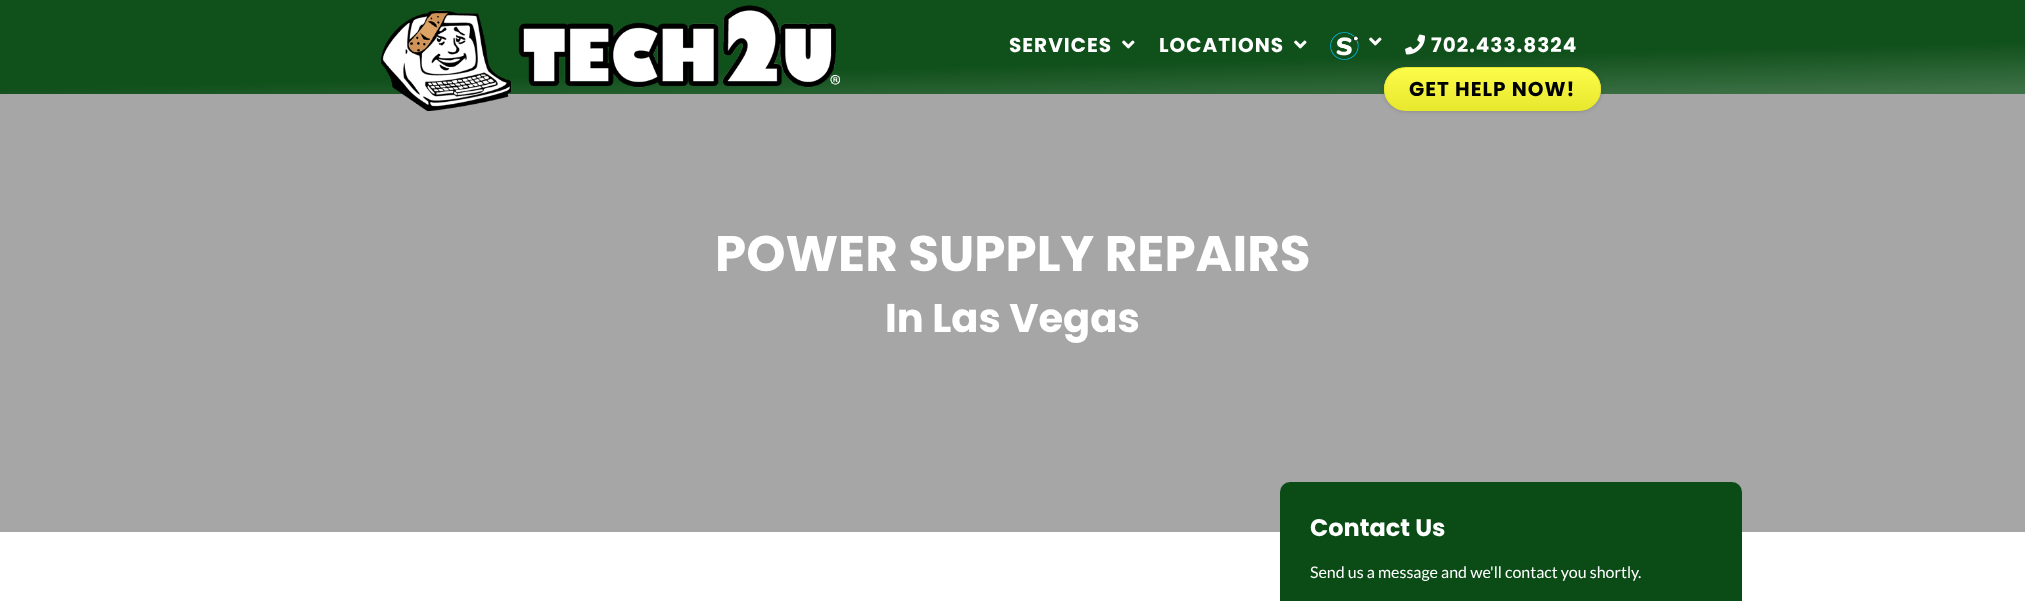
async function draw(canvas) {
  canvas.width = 2025;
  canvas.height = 601;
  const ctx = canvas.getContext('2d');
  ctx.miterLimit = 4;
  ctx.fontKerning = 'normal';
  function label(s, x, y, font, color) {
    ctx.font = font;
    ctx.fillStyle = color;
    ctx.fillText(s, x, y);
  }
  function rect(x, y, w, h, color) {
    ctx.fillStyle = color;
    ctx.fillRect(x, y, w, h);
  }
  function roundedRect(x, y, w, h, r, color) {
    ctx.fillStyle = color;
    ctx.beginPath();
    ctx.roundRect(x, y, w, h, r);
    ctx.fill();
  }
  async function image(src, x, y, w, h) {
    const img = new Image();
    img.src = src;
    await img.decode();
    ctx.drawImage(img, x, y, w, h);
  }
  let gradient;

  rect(0, 0, 2025, 601, '#fff');
  gradient = ctx.createLinearGradient(1011, -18, 1014, 112);
  gradient.addColorStop(0.64, '#10501b');
  gradient.addColorStop(1, '#3c7045');
  ctx.fillStyle = gradient;
  ctx.fillRect(0, 0, 2025, 94);
  rect(0, 94, 2025, 438, '#a6a6a6');
  await image('assets/img1.png', 380, 5, 460, 106);
  ctx.letterSpacing = '1px';
  label('SERVICES', 1009, 52, 'bold 20px Poppins', '#fff');
  await image('assets/img2.png', 1122, 40, 13, 9);
  label('LOCATIONS', 1159, 52, 'bold 20px Poppins', '#fff');
  await image('assets/img2.png', 1294, 40, 13, 9);
  await image('assets/img3.png', 1330, 32, 29, 28);
  await image('assets/img2.png', 1369, 37, 13, 9);
  await image('assets/img4.png', 1405, 34, 20, 21);
  label('702.433.8324', 1431, 52, 'bold 20px Poppins', '#fff');
  ctx.fillStyle = '#3134384d';
  ctx.filter = 'blur(2px)';
  ctx.beginPath();
  ctx.roundRect(1384, 67, 217, 44, 22);
  ctx.fill();
  ctx.filter = 'none';
  ctx.save();
  ctx.beginPath();
  ctx.roundRect(1384, 67, 217, 44, 22);
  ctx.clip();
  gradient = ctx.createLinearGradient(1493, 68, 1493, 110);
  gradient.addColorStop(0, '#fcfc4b');
  gradient.addColorStop(1, '#e8e82e');
  ctx.fillStyle = gradient;
  ctx.fillRect(1384, 68, 217, 42);
  ctx.restore();
  ctx.beginPath();
  ctx.roundRect(1384.5, 67.5, 216, 43, 21.5);
  ctx.strokeStyle = '#e8e82e';
  ctx.stroke();
  label('GET HELP NOW!', 1409, 96, 'bold 20px Poppins', '#000');
  ctx.letterSpacing = '0px';
  label('POWER SUPPLY REPAIRS', 715, 271, 'bold 50px Poppins', '#fff');
  label('In Las Vegas', 885, 332, 'bold 40px Poppins', '#fff');
  roundedRect(1280, 482, 462, 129, 10, '#0b4c16');
  label('Contact Us', 1310, 536, 'bold 24px Poppins', '#fff');
  label('Send us a message and we\'ll contact you shortly.', 1310, 578, '16px Lato', '#fff');
}

draw(document.querySelector('canvas'));
